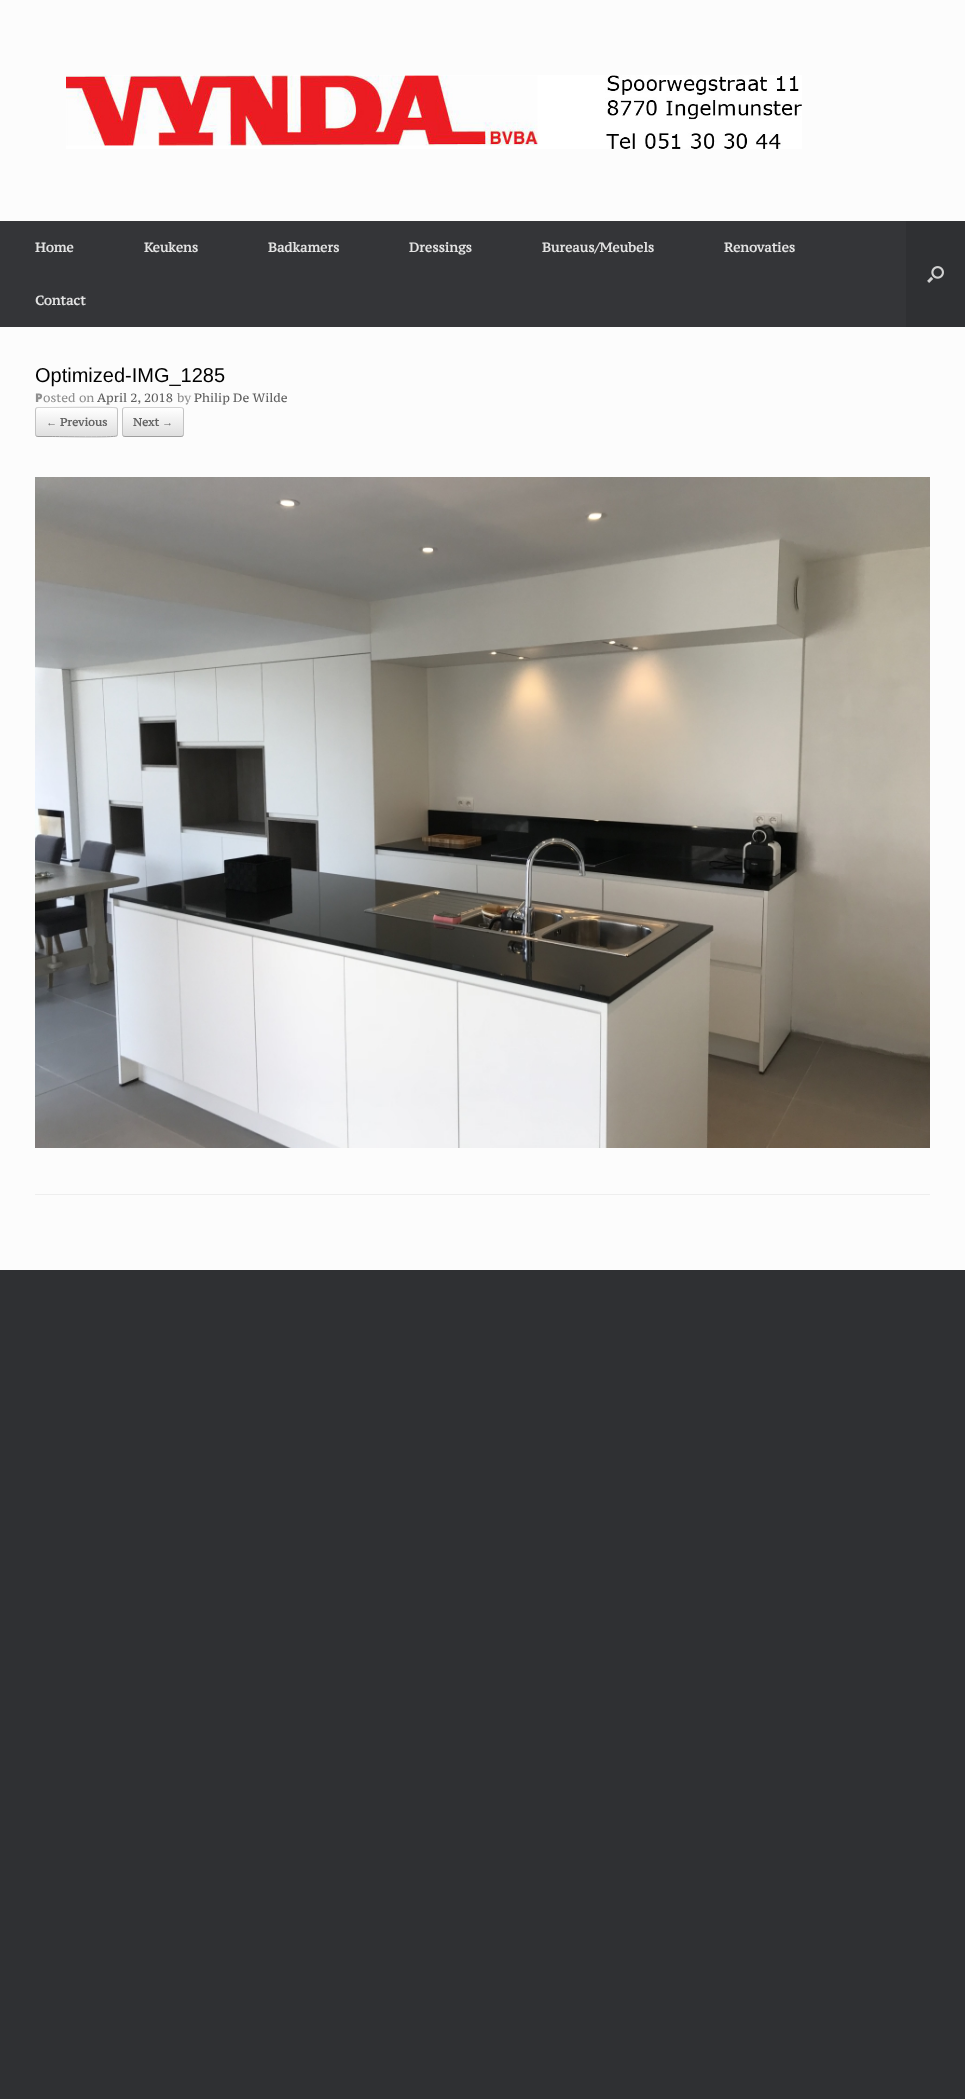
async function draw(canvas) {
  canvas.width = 965;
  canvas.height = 2099;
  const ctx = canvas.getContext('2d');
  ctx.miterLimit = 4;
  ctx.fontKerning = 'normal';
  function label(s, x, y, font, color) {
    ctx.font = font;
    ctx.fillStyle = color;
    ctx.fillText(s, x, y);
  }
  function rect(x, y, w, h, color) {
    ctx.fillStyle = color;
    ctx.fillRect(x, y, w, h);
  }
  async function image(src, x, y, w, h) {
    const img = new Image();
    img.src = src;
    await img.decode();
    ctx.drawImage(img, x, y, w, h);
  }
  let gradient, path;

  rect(0, 0, 965, 2099, '#2f3033');
  rect(0, 0, 965, 221, '#fcfcfc');
  await image('assets/img1.png', 66, 75, 736, 74);
  rect(0, 221, 906, 106, '#343538');
  label('Home', 35, 252, 'bold 13px PT Serif Caption', '#e2e2e2');
  label('Keukens', 144, 252, 'bold 13px PT Serif Caption', '#e2e2e2');
  label('Badkamers', 268, 252, 'bold 13px PT Serif Caption', '#e2e2e2');
  label('Dressings', 409, 252, 'bold 13px PT Serif Caption', '#e2e2e2');
  label('Bureaus/Meubels', 542, 252, 'bold 13px PT Serif Caption', '#e2e2e2');
  label('Renovaties', 724, 252, 'bold 13px PT Serif Caption', '#e2e2e2');
  label('Contact', 35, 305, 'bold 13px PT Serif Caption', '#e2e2e2');
  await image('assets/img2.png', 927, 266, 17, 17);
  rect(0, 327, 965, 943, '#fcfcfc');
  rect(35, 1194, 895, 1, '#eee');
  label('Optimized-IMG_1285', 35, 382, '20px Liberation Sans', '#000');
  label('P', 35, 402, '900 12px Noto Sans', '#8f8f8f');
  label('osted on', 43, 402, '12px PT Serif Caption', '#8f8f8f');
  label('April 2, 2018', 97, 402, '12px PT Serif Caption', '#5e5e5e');
  label('by', 177, 402, '12px PT Serif Caption', '#8f8f8f');
  label('Philip De Wilde', 194, 402, '12px PT Serif Caption', '#5e5e5e');
  ctx.save();
  ctx.beginPath();
  ctx.roundRect(35, 407, 83, 30, 3);
  ctx.clip();
  gradient = ctx.createLinearGradient(36, 408, 36, 380);
  gradient.addColorStop(0, '#dfdfdf');
  gradient.addColorStop(1, '#fff');
  ctx.fillStyle = gradient;
  ctx.fillRect(35, 407, 83, 1);
  gradient = ctx.createLinearGradient(36, 436, 36, 408);
  gradient.addColorStop(0, '#dfdfdf');
  gradient.addColorStop(1, '#fff');
  ctx.fillStyle = gradient;
  ctx.fillRect(35, 408, 83, 28);
  ctx.restore();
  path = new Path2D('M36 408L38 407.5H51C58 407.5 114.5 406.5 116.5 408H117');
  ctx.strokeStyle = '#d2d2d2';
  ctx.stroke(path);
  path = new Path2D('M117 408C117 408.5 117.5 409.5 117.5 410V434C117.5 434.5 117 435.5 117 436');
  ctx.strokeStyle = '#c3c3c3';
  ctx.stroke(path);
  path = new Path2D('M117 436H116.5C114.5 437.5 58 436.5 51 436.5H38L36 436');
  ctx.strokeStyle = '#9f9f9f';
  ctx.stroke(path);
  path = new Path2D('M36 436C36 435.5 35.5 434.5 35.5 434V410C35.5 409.5 36 408.5 36 408');
  ctx.strokeStyle = '#c3c3c3';
  ctx.stroke(path);
  label('←', 46, 426, 'bold 11px Liberation Serif', '#646464');
  label('Previous', 60, 426, 'bold 11px PT Serif Caption', '#646464');
  ctx.save();
  ctx.beginPath();
  ctx.roundRect(122, 407, 62, 30, 3);
  ctx.clip();
  gradient = ctx.createLinearGradient(123, 436, 123, 408);
  gradient.addColorStop(0, '#dfdfdf');
  gradient.addColorStop(1, '#fff');
  ctx.fillStyle = gradient;
  ctx.fillRect(122, 408, 62, 28);
  ctx.restore();
  path = new Path2D('M123 408L125 407.5H181L183 408');
  ctx.strokeStyle = '#d2d2d2';
  ctx.stroke(path);
  path = new Path2D('M183 408C183 408.5 183.5 409.5 183.5 410V434C183.5 434.5 183 435.5 183 436');
  ctx.strokeStyle = '#c3c3c3';
  ctx.stroke(path);
  path = new Path2D('M183 436L181 436.5H125L123 436');
  ctx.strokeStyle = '#9f9f9f';
  ctx.stroke(path);
  path = new Path2D('M123 436C123 435.5 122.5 434.5 122.5 434V410C122.5 409.5 123 408.5 123 408');
  ctx.strokeStyle = '#c3c3c3';
  ctx.stroke(path);
  label('Next', 133, 426, 'bold 11px PT Serif Caption', '#646464');
  label('→', 162, 426, 'bold 11px Liberation Serif', '#646464');
  await image('assets/img3.png', 35, 477, 895, 671);
}

draw(document.querySelector('canvas'));
